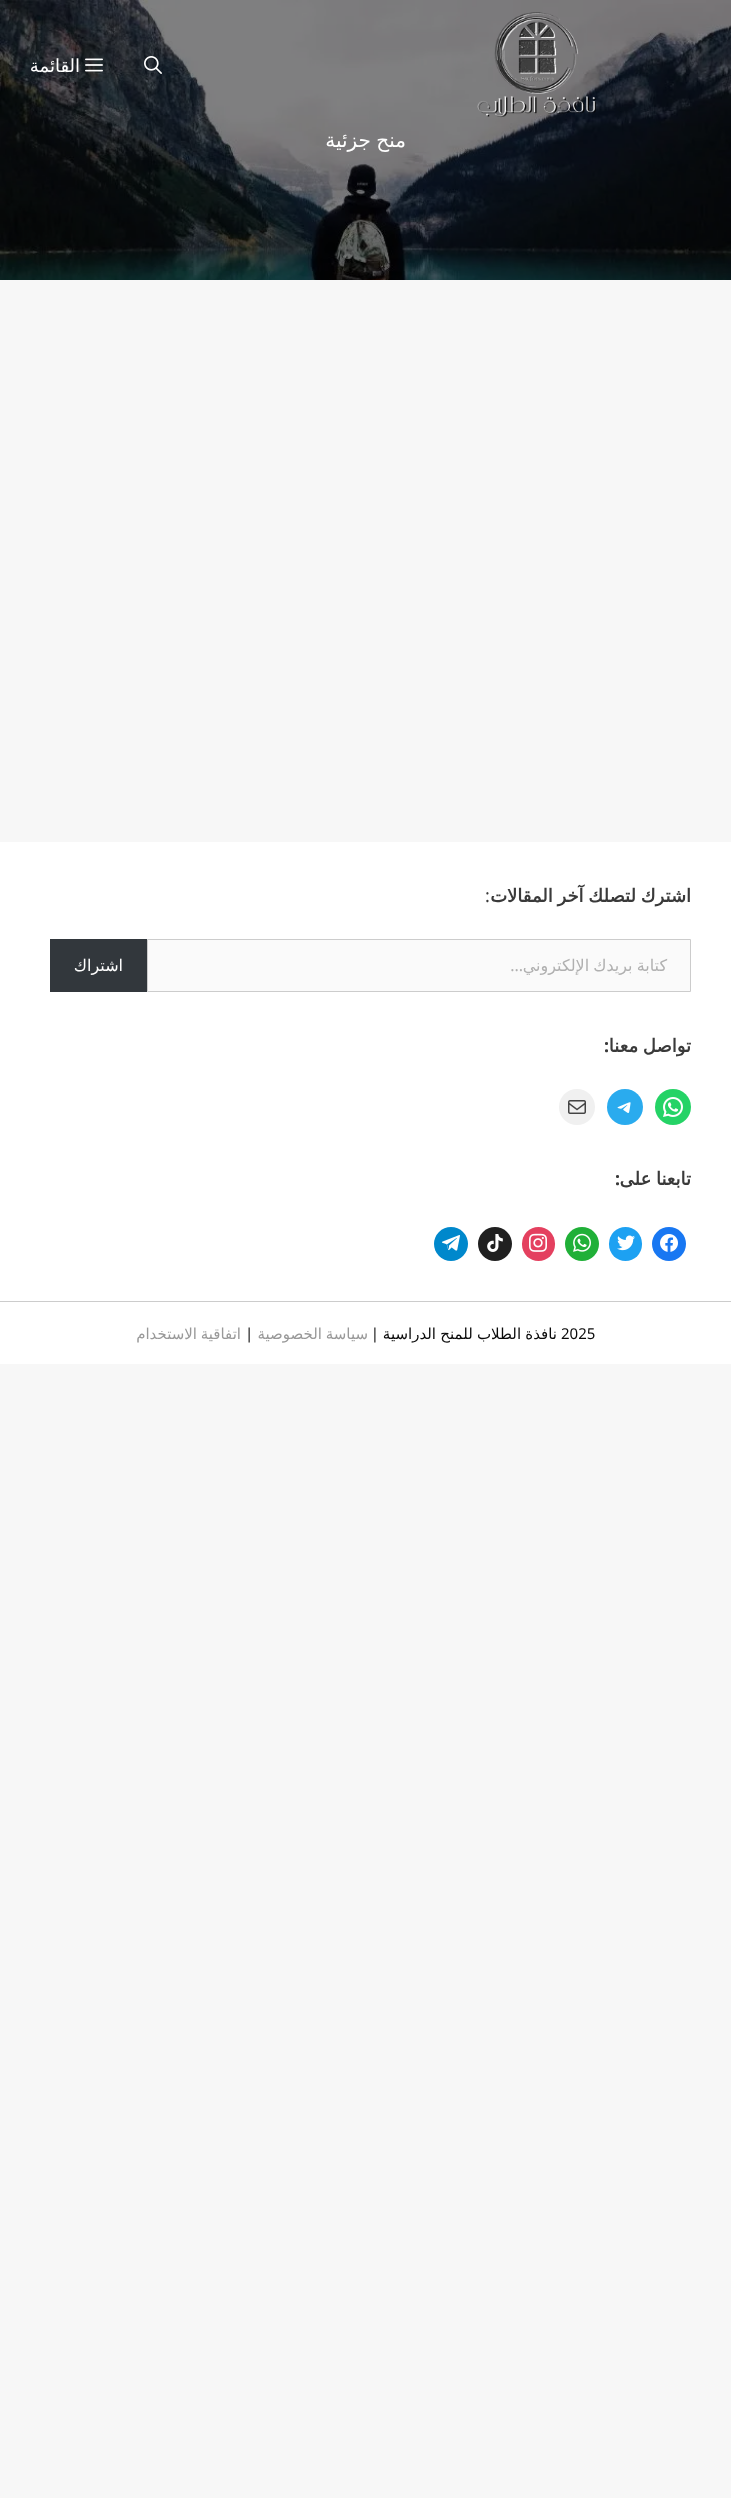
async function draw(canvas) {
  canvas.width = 731;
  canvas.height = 2498;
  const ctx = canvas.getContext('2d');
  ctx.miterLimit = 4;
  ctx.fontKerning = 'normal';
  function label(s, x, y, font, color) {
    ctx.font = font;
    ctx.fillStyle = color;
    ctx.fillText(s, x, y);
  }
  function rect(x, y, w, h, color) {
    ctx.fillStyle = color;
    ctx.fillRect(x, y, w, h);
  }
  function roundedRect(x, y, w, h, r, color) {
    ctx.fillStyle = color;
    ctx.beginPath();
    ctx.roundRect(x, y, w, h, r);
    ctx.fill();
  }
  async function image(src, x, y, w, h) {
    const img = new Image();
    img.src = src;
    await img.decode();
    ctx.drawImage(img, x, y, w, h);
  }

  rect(0, 0, 731, 2498, '#f7f7f7');
  rect(0, 0, 731, 280, '#000');
  await image('assets/img4.png', 0, 0, 731, 280);
  await image('assets/img1.png', 477, 12, 119, 106);
  await image('assets/img2.png', 144, 56, 18, 18);
  await image('assets/img3.png', 85, 58, 18, 14);
  ctx.direction = 'rtl';
  label('القائمة', 80, 72, '18px DejaVu Sans', '#fff');
  ctx.wordSpacing = '-1px';
  label('منح جزئية', 406, 147, '20px DejaVu Sans', '#fff');
  rect(0, 842, 731, 459, '#fff');
  label('اشترك لتصلك آخر المقالات', 691, 902, 'bold 18px DejaVu Sans', '#3a3a3a');
  ctx.wordSpacing = '0px';
  ctx.direction = 'ltr';
  label(':', 485, 902, '18px Noto Sans', '#3a3a3a');
  ctx.fillStyle = '#fafafa';
  ctx.beginPath();
  ctx.rect(147.5, 939.5, 543, 52);
  ctx.fill();
  ctx.strokeStyle = '#ccc';
  ctx.stroke();
  ctx.wordSpacing = '-1px';
  ctx.direction = 'rtl';
  label('كتابة بريدك الإلكتروني', 667, 971, '16px DejaVu Sans', '#b0b0b0');
  ctx.wordSpacing = '0px';
  label('...', 523, 971, '16px Noto Sans', '#b0b0b0');
  rect(50, 939, 97, 53, '#32373c');
  label('اشتراك', 123, 971, '16px DejaVu Sans', '#fff');
  ctx.wordSpacing = '-1px';
  label('تواصل معنا', 691, 1052, 'bold 18px DejaVu Sans', '#3a3a3a');
  ctx.wordSpacing = '0px';
  label(':', 609, 1052, 'bold 18px Noto Sans', '#3a3a3a');
  ctx.fillStyle = '#25d366';
  ctx.beginPath();
  ctx.arc(673, 1107, 18, 0, 2 * Math.PI);
  ctx.fill();
  await image('assets/img5.png', 663, 1097, 20, 20);
  ctx.fillStyle = '#2aabee';
  ctx.beginPath();
  ctx.arc(625, 1107, 18, 0, 2 * Math.PI);
  ctx.fill();
  await image('assets/img6.png', 617, 1102, 14, 11);
  ctx.fillStyle = '#f0f0f0';
  ctx.beginPath();
  ctx.arc(577, 1107, 18, 0, 2 * Math.PI);
  ctx.fill();
  await image('assets/img7.png', 568, 1100, 18, 14);
  ctx.wordSpacing = '-1px';
  label('تابعنا على', 691, 1185, 'bold 18px DejaVu Sans', '#3a3a3a');
  ctx.wordSpacing = '0px';
  label(':', 620, 1185, 'bold 18px Noto Sans', '#3a3a3a');
  ctx.fillStyle = '#1877f2';
  ctx.beginPath();
  ctx.arc(669, 1244, 17, 0, 2 * Math.PI);
  ctx.fill();
  await image('assets/img8.png', 660, 1234, 18, 18);
  roundedRect(609, 1227, 33, 34, 16.5, '#1da1f2');
  await image('assets/img9.png', 617, 1235, 18, 16);
  ctx.fillStyle = '#20b038';
  ctx.beginPath();
  ctx.arc(582, 1244, 17, 0, 2 * Math.PI);
  ctx.fill();
  await image('assets/img10.png', 573, 1233, 18, 19);
  roundedRect(522, 1227, 33, 34, 16.5, '#e4405f');
  await image('assets/img11.png', 529, 1233, 18, 19);
  ctx.fillStyle = '#202020';
  ctx.beginPath();
  ctx.arc(495, 1244, 17, 0, 2 * Math.PI);
  ctx.fill();
  await image('assets/img12.png', 487, 1234, 16, 18);
  ctx.fillStyle = '#08c';
  ctx.beginPath();
  ctx.arc(451, 1244, 17, 0, 2 * Math.PI);
  ctx.fill();
  await image('assets/img13.png', 442, 1235, 18, 16);
  rect(0, 1302, 731, 62, '#fff');
  rect(0, 1301, 731, 1, '#ccc');
  ctx.direction = 'ltr';
  label('2025', 561, 1339, '15px Noto Sans', '#0a0a0a');
  ctx.wordSpacing = '-0.5px';
  ctx.direction = 'rtl';
  label('نافذة الطلاب للمنح الدراسية', 557, 1339, '15px DejaVu Sans', '#0a0a0a');
  ctx.wordSpacing = '0px';
  label('|', 379, 1339, '15px Noto Sans', '#0a0a0a');
  ctx.wordSpacing = '-1px';
  label('سياسة الخصوصية', 368, 1339, '15px DejaVu Sans', '#999');
  ctx.wordSpacing = '0px';
  ctx.direction = 'ltr';
  label('|', 245, 1339, '15px Noto Sans', '#0a0a0a');
  ctx.wordSpacing = '-1px';
  ctx.direction = 'rtl';
  label('اتفاقية الاستخدام', 241, 1339, '15px DejaVu Sans', '#999');
}

draw(document.querySelector('canvas'));
